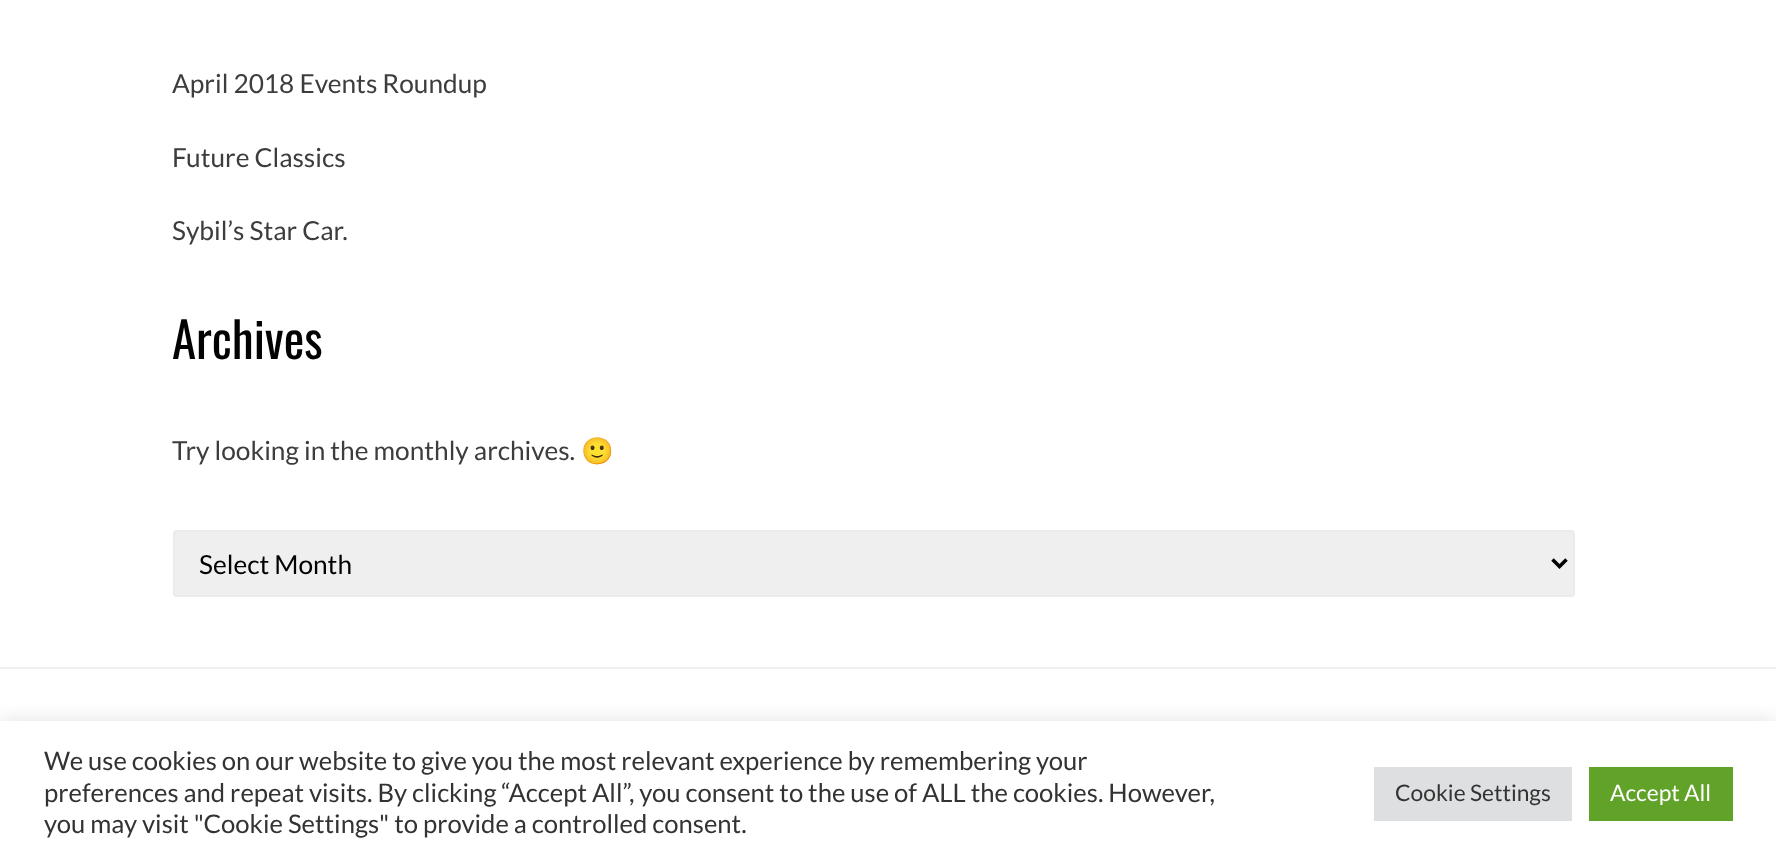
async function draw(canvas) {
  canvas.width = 1776;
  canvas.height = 863;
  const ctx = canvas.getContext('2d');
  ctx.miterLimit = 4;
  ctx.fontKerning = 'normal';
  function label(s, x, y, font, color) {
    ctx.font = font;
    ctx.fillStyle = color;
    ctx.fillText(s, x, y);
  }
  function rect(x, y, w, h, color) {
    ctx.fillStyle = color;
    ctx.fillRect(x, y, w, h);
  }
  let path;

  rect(0, 0, 1776, 863, '#fff');
  label('April 2018 Events Roundup', 172, 93, '26.25px Lato', '#3d3d3d');
  label('Future Classics', 172, 167, '26.25px Lato', '#3d3d3d');
  label('Sybil’s Star Car.', 172, 240, '26.25px Lato', '#3d3d3d');
  label('Archives', 172, 359, '49px Oswald', '#020202');
  label('Try looking in the monthly archives.', 172, 460, '26.25px Lato', '#3d3d3d');
  label('🙂', 581, 460, '26.25px Noto Color Emoji', '#3d3d3d');
  ctx.fillStyle = '#efefef';
  ctx.beginPath();
  ctx.roundRect(174, 531, 1400, 65, 3);
  ctx.fill();
  ctx.strokeStyle = '#ebebeb';
  ctx.lineWidth = 2;
  ctx.stroke();
  path = new Path2D('M1552.5 559.5L1559.5 566.5L1566.5 559.5');
  ctx.strokeStyle = '#020202';
  ctx.lineWidth = 3.5;
  ctx.stroke(path);
  label('Select Month', 199, 574, '26.25px Lato', '#020202');
  rect(0, 667, 1776, 2, '#f0f0f0');
  ctx.fillStyle = '#acabab4d';
  ctx.filter = 'blur(9px)';
  ctx.beginPath();
  ctx.rect(0, 719, 1776, 144);
  ctx.fill();
  ctx.filter = 'none';
  rect(0, 721, 1776, 142, '#fff');
  label('We use cookies on our website to give you the most relevant experience by remembering your', 44, 770, '25.65px Lato', '#333');
  label('preferences and repeat visits. By clicking “Accept All”, you consent to the use of ALL the cookies. However,', 44, 802, '25.65px Lato', '#333');
  label('you may visit "Cookie Settings" to provide a controlled consent.', 44, 833, '25.65px Lato', '#333');
  rect(1374, 767, 198, 54, '#dedfe0');
  label('Cookie Settings', 1395, 801, '22.75px Lato', '#333');
  rect(1589, 767, 144, 54, '#61a229');
  label('Accept All', 1610, 801, '22.75px Lato', '#fff');
}

draw(document.querySelector('canvas'));
